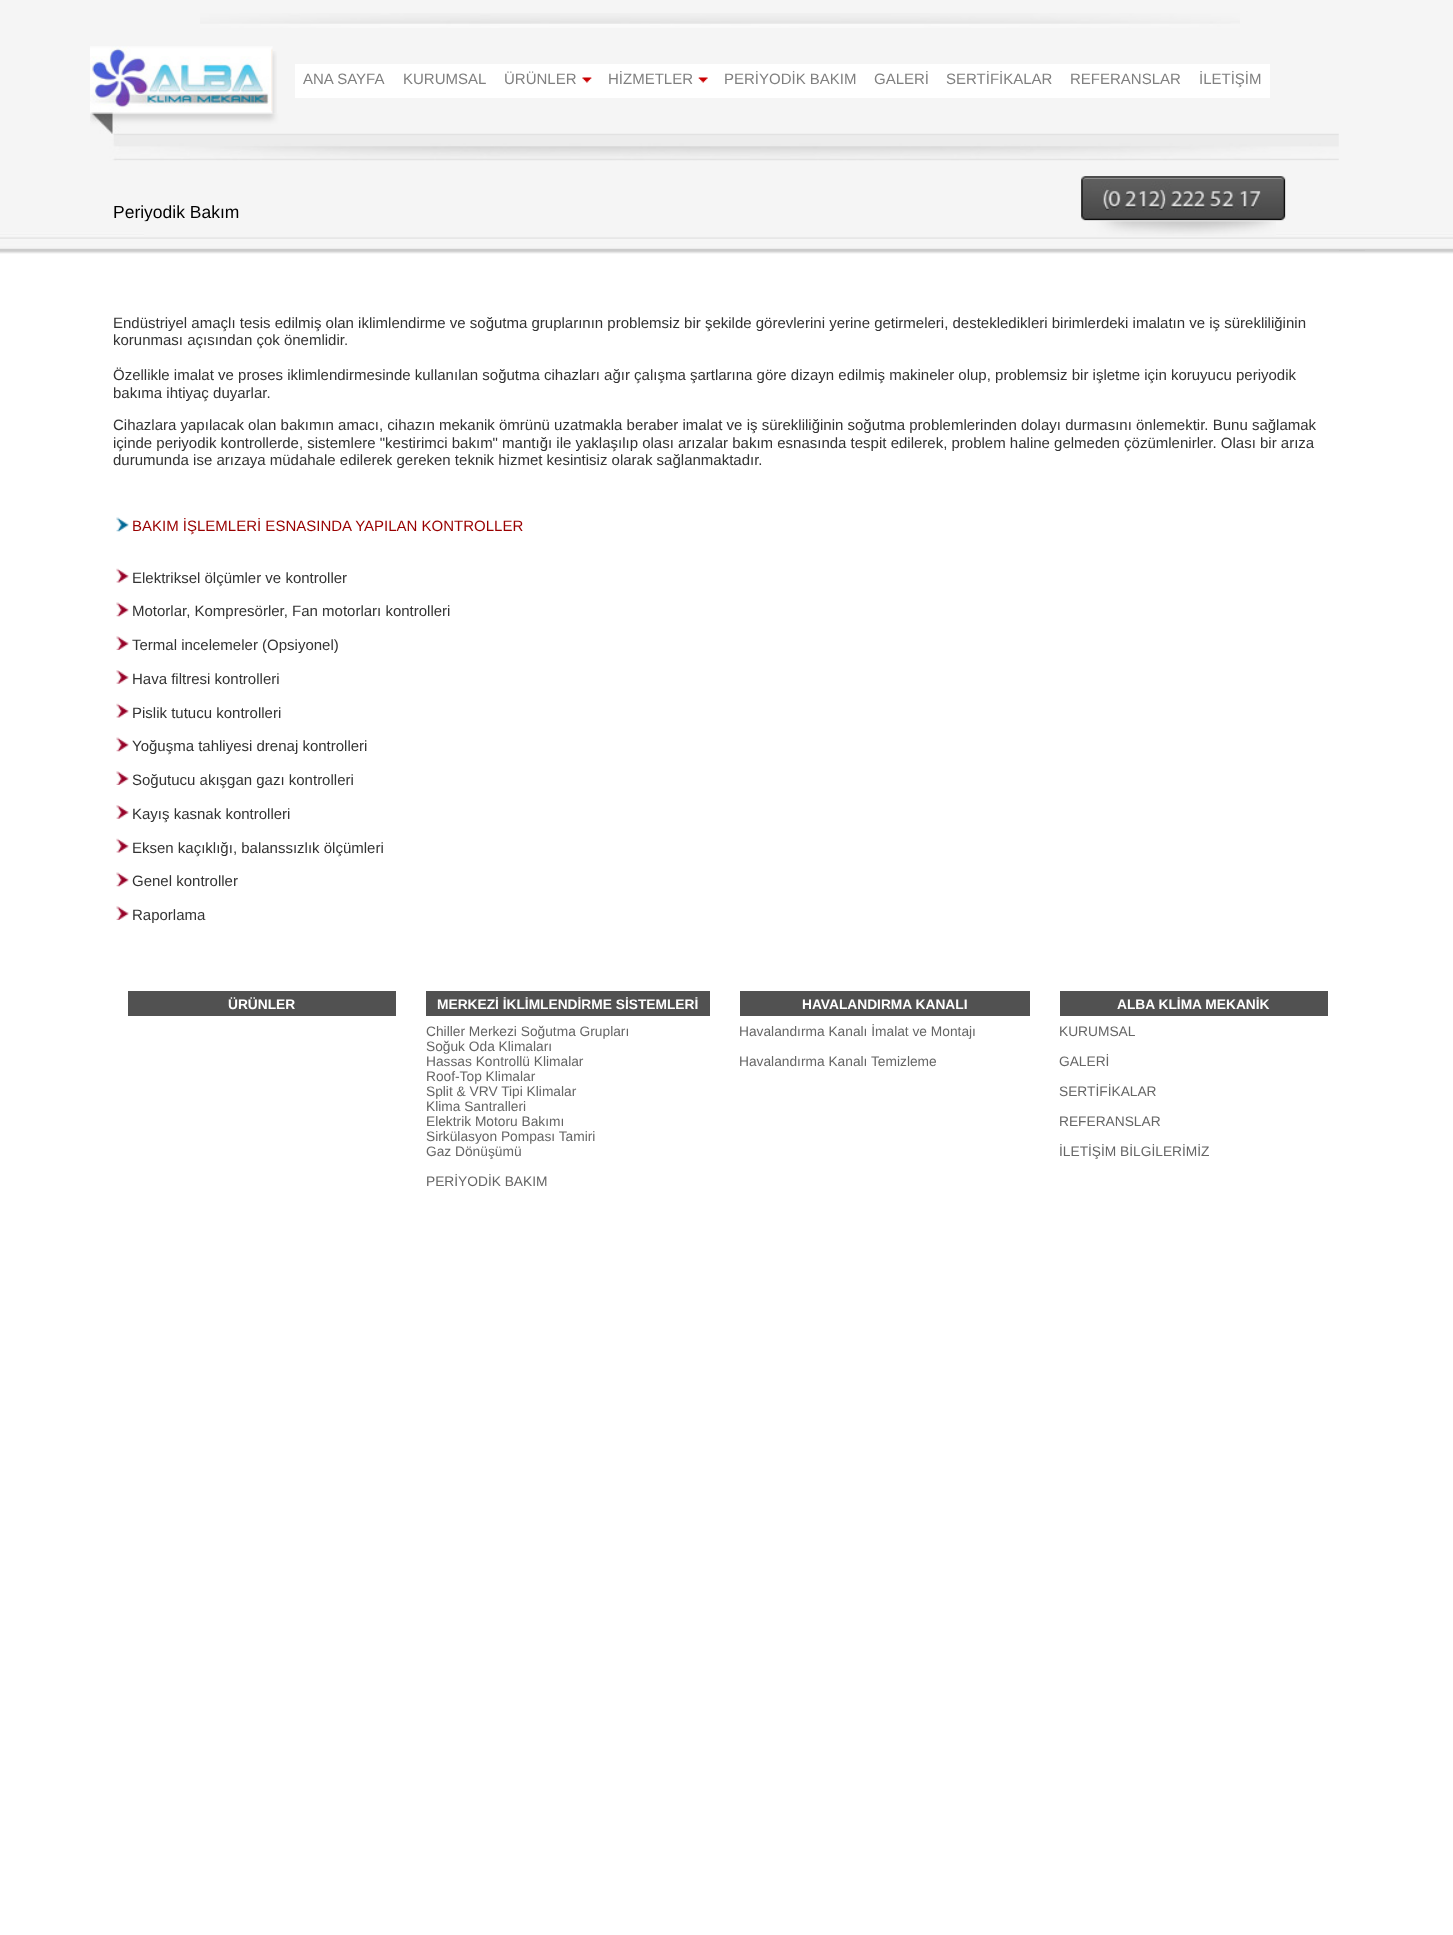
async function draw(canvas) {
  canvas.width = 1453;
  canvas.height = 1935;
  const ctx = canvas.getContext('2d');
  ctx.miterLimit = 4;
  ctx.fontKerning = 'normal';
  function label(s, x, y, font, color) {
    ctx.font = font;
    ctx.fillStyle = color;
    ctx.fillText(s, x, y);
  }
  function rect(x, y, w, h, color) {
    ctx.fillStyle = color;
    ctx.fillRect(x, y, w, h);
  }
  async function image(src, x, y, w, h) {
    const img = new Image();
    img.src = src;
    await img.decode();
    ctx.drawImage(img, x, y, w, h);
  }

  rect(0, 0, 1453, 1935, '#fff');
  await image('assets/img1.png', 0, 0, 1453, 254);
  await image('assets/img2.png', 200, 13, 1040, 15);
  await image('assets/img3.png', 90, 46, 183, 68);
  await image('assets/img4.png', 272, 51, 5, 63);
  rect(295, 64, 975, 34, '#fff');
  label('ANA SAYFA', 303, 84, '15px Liberation Sans', '#808080');
  label('KURUMSAL', 403, 84, '15px Liberation Sans', '#808080');
  await image('assets/img5.png', 582, 77, 10, 6);
  label('ÜRÜNLER', 504, 84, '15px Liberation Sans', '#808080');
  await image('assets/img6.png', 698, 77, 10, 6);
  label('HİZMETLER', 608, 84, '15px Liberation Sans', '#808080');
  label('PERİYODİK BAKIM', 724, 84, '15px Liberation Sans', '#808080');
  label('GALERİ', 874, 84, '15px Liberation Sans', '#808080');
  label('SERTİFİKALAR', 946, 84, '15px Liberation Sans', '#808080');
  label('REFERANSLAR', 1070, 84, '15px Liberation Sans', '#808080');
  label('İLETİŞİM', 1199, 84, '15px Liberation Sans', '#808080');
  rect(1339, 250, 26, 1, '#c7c7c7');
  await image('assets/img7.png', 90, 113, 1249, 48);
  label('Periyodik Bakım', 113, 218, '17.5px Liberation Sans', '#000');
  await image('assets/img8.png', 1081, 176, 205, 45);
  await image('assets/img9.png', 144, 221, 1132, 15);
  label('Endüstriyel amaçlı tesis edilmiş olan iklimlendirme ve soğutma gruplarının problemsiz bir şekilde görevlerini yerine getirmeleri, destekledikleri birimlerdeki imalatın ve iş sürekliliğinin', 113, 328, '15px Liberation Sans', '#333');
  label('korunması açısından çok önemlidir.', 113, 345, '15px Liberation Sans', '#333');
  label('Özellikle imalat ve proses iklimlendirmesinde kullanılan soğutma cihazları ağır çalışma şartlarına göre dizayn edilmiş makineler olup, problemsiz bir işletme için koruyucu periyodik', 113, 380, '15px Liberation Sans', '#333');
  label('bakıma ihtiyaç duyarlar.', 113, 398, '15px Liberation Sans', '#333');
  label('Cihazlara yapılacak olan bakımın amacı, cihazın mekanik ömrünü uzatmakla beraber imalat ve iş sürekliliğinin soğutma problemlerinden dolayı durmasını önlemektir. Bunu sağlamak', 113, 430, '15px Liberation Sans', '#333');
  label('içinde periyodik kontrollerde, sistemlere "kestirimci bakım" mantığı ile yaklaşılıp olası arızalar bakım esnasında tespit edilerek, problem haline gelmeden çözümlenirler. Olası bir arıza', 113, 448, '15px Liberation Sans', '#333');
  label('durumunda ise arızaya müdahale edilerek gereken teknik hizmet kesintisiz olarak sağlanmaktadır.', 113, 465, '15px Liberation Sans', '#333');
  await image('assets/img10.png', 116, 517, 13, 15);
  label('BAKIM İŞLEMLERİ ESNASINDA YAPILAN KONTROLLER', 132, 531, '15px Liberation Sans', '#900');
  await image('assets/img11.png', 116, 568, 13, 15);
  label('Elektriksel ölçümler ve kontroller', 132, 583, '15px Liberation Sans', '#333');
  await image('assets/img12.png', 116, 602, 13, 15);
  label('Motorlar, Kompresörler, Fan motorları kontrolleri', 132, 616, '15px Liberation Sans', '#333');
  await image('assets/img13.png', 116, 636, 13, 14);
  label('Termal incelemeler (Opsiyonel)', 132, 650, '15px Liberation Sans', '#333');
  await image('assets/img14.png', 116, 670, 13, 14);
  label('Hava filtresi kontrolleri', 132, 684, '15px Liberation Sans', '#333');
  await image('assets/img11.png', 116, 703, 13, 15);
  label('Pislik tutucu kontrolleri', 132, 718, '15px Liberation Sans', '#333');
  await image('assets/img12.png', 116, 737, 13, 15);
  label('Yoğuşma tahliyesi drenaj kontrolleri', 132, 751, '15px Liberation Sans', '#333');
  await image('assets/img13.png', 116, 771, 13, 14);
  label('Soğutucu akışgan gazı kontrolleri', 132, 785, '15px Liberation Sans', '#333');
  await image('assets/img14.png', 116, 805, 13, 14);
  label('Kayış kasnak kontrolleri', 132, 819, '15px Liberation Sans', '#333');
  await image('assets/img11.png', 116, 838, 13, 15);
  label('Eksen kaçıklığı, balanssızlık ölçümleri', 132, 853, '15px Liberation Sans', '#333');
  await image('assets/img12.png', 116, 872, 13, 15);
  label('Genel kontroller', 132, 886, '15px Liberation Sans', '#333');
  await image('assets/img13.png', 116, 906, 13, 14);
  label('Raporlama', 132, 920, '15px Liberation Sans', '#333');
  rect(128, 991, 268, 25, '#515151');
  label('ÜRÜNLER', 228, 1009, 'bold 13.75px Liberation Sans', '#fff');
  rect(426, 991, 284, 25, '#515151');
  label('MERKEZİ İKLİMLENDİRME SİSTEMLERİ', 437, 1009, 'bold 13.75px Liberation Sans', '#fff');
  rect(740, 991, 290, 25, '#515151');
  label('HAVALANDIRMA KANALI', 802, 1009, 'bold 13.75px Liberation Sans', '#fff');
  rect(1060, 991, 268, 25, '#515151');
  label('ALBA KLİMA MEKANİK', 1117, 1009, 'bold 13.75px Liberation Sans', '#fff');
  label('Chiller Merkezi Soğutma Grupları', 426, 1036, '13.75px Liberation Sans', '#666');
  label('Soğuk Oda Klimaları', 426, 1051, '13.75px Liberation Sans', '#666');
  label('Hassas Kontrollü Klimalar', 426, 1066, '13.75px Liberation Sans', '#666');
  label('Roof-Top Klimalar', 426, 1081, '13.75px Liberation Sans', '#666');
  label('Split & VRV Tipi Klimalar', 426, 1096, '13.75px Liberation Sans', '#666');
  label('Klima Santralleri', 426, 1111, '13.75px Liberation Sans', '#666');
  label('Elektrik Motoru Bakımı', 426, 1126, '13.75px Liberation Sans', '#666');
  label('Sirkülasyon Pompası Tamiri', 426, 1141, '13.75px Liberation Sans', '#666');
  label('Gaz Dönüşümü', 426, 1156, '13.75px Liberation Sans', '#666');
  label('PERİYODİK BAKIM', 426, 1186, '13.75px Liberation Sans', '#666');
  label('Havalandırma Kanalı İmalat ve Montajı', 739, 1036, '13.75px Liberation Sans', '#666');
  label('Havalandırma Kanalı Temizleme', 739, 1066, '13.75px Liberation Sans', '#666');
  label('KURUMSAL', 1059, 1036, '13.75px Liberation Sans', '#666');
  label('GALERİ', 1059, 1066, '13.75px Liberation Sans', '#666');
  label('SERTİFİKALAR', 1059, 1096, '13.75px Liberation Sans', '#666');
  label('REFERANSLAR', 1059, 1126, '13.75px Liberation Sans', '#666');
  label('İLETİŞİM BİLGİLERİMİZ', 1059, 1156, '13.75px Liberation Sans', '#666');
}

draw(document.querySelector('canvas'));
